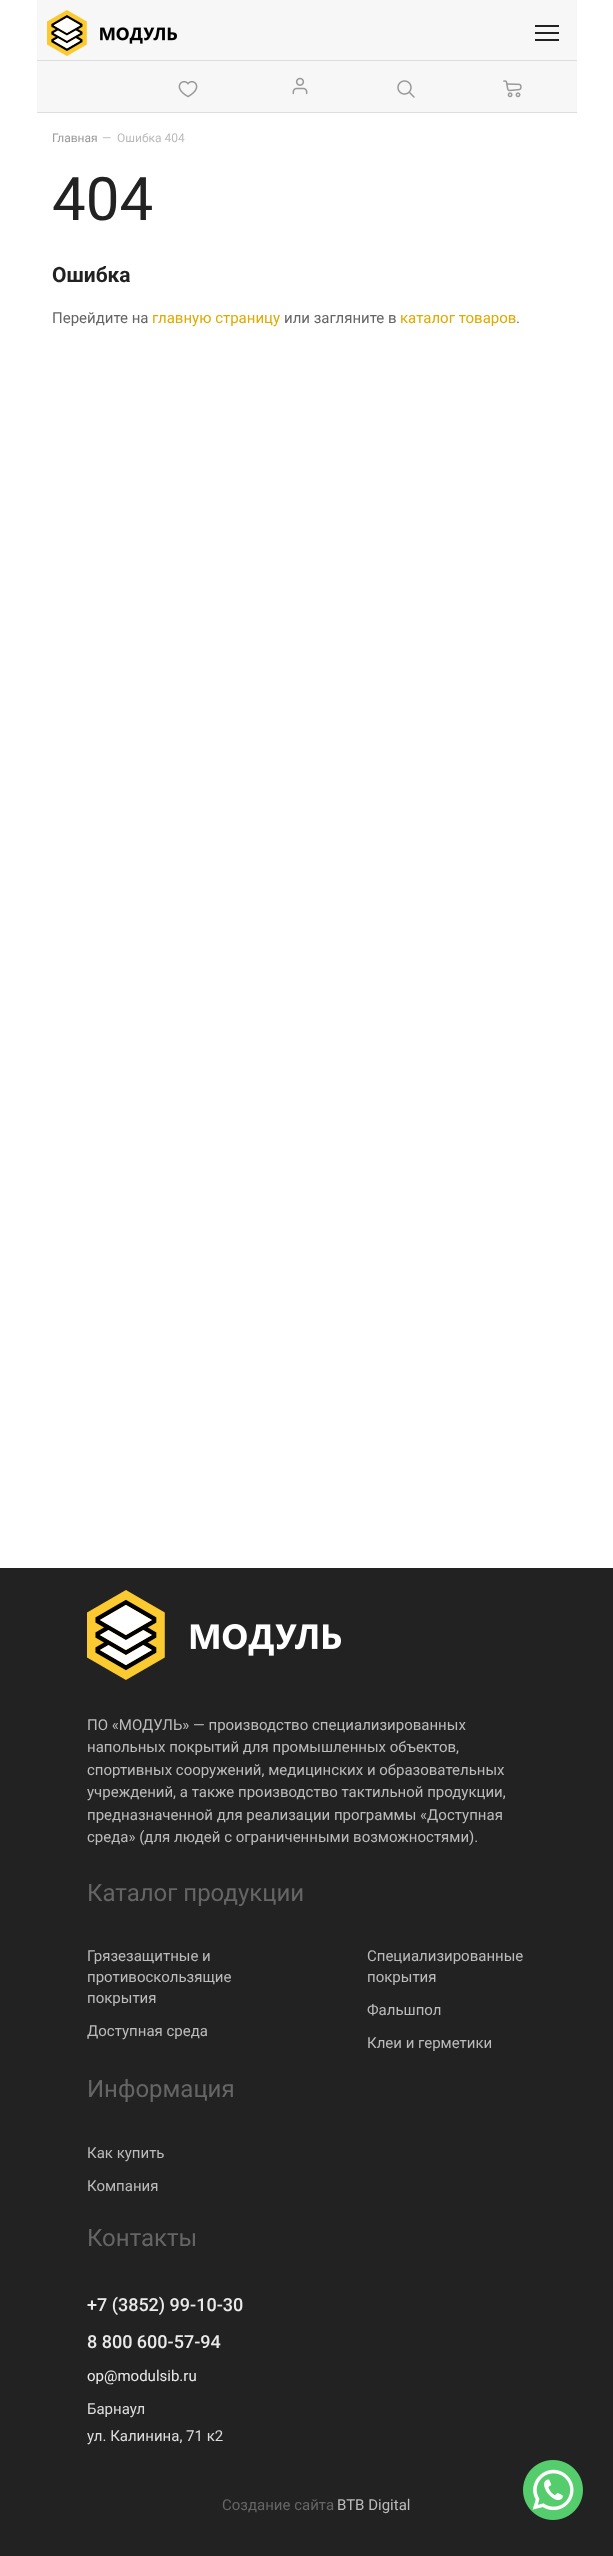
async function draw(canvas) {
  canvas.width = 613;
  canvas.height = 2556;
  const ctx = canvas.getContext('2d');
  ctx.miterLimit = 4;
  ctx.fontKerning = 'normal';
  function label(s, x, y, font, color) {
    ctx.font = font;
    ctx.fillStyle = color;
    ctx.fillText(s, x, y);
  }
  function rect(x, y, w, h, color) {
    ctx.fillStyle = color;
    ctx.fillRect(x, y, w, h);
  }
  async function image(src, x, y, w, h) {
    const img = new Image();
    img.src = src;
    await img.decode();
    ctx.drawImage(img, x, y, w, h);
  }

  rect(0, 0, 613, 2556, '#fff');
  rect(37, 0, 540, 112, '#f7f7f7');
  rect(37, 112, 540, 1, '#ddd');
  await image('assets/img1.png', 47, 10, 130, 46);
  rect(37, 60, 540, 1, '#ddd');
  rect(535, 25, 24, 2, '#222');
  rect(535, 32, 24, 2, '#222');
  rect(535, 39, 24, 2, '#222');
  await image('assets/img2.png', 178, 80, 20, 18);
  await image('assets/img3.png', 292, 77, 16, 18);
  await image('assets/img4.png', 397, 80, 18, 18);
  await image('assets/img5.png', 503, 80, 19, 18);
  label('Главная', 52, 142, '12px Roboto', '#999');
  label('—', 102, 142, '12px Roboto', '#bbb');
  label('Ошибка 404', 117, 142, '12px Roboto', '#bbb');
  label('404', 52, 220, '60px Roboto', '#222');
  label('Ошибка', 52, 282, 'bold 21px Roboto', '#222');
  label('Перейдите на', 52, 323, '15px Roboto', '#656565');
  label('главную страницу', 152, 323, '15px Roboto', '#dfaa01');
  label('или загляните в', 284, 323, '15px Roboto', '#656565');
  label('каталог товаров', 400, 323, '15px Roboto', '#dfaa01');
  label('.', 516, 323, '15px Roboto', '#656565');
  rect(0, 1568, 613, 988, '#222');
  await image('assets/img6.png', 87, 1590, 254, 90);
  label('ПО «МОДУЛЬ» — производство специализированных', 87, 1730, '15px Roboto', '#bbb');
  label('напольных покрытий для промышленных объектов,', 87, 1752, '15px Roboto', '#bbb');
  label('спортивных сооружений, медицинских и образовательных', 87, 1775, '15px Roboto', '#bbb');
  label('учреждений, а также производство тактильной продукции,', 87, 1797, '15px Roboto', '#bbb');
  label('предназначенной для реализации программы «Доступная', 87, 1820, '15px Roboto', '#bbb');
  label('среда» (для людей с ограниченными возможностями).', 87, 1842, '15px Roboto', '#bbb');
  label('Каталог продукции', 87, 1901, '24px Roboto', '#656565');
  label('Грязезащитные и', 87, 1961, '15px Roboto', '#bbb');
  label('противоскользящие', 87, 1982, '15px Roboto', '#bbb');
  label('покрытия', 87, 2003, '15px Roboto', '#bbb');
  label('Специализированные', 367, 1961, '15px Roboto', '#bbb');
  label('покрытия', 367, 1982, '15px Roboto', '#bbb');
  label('Фальшпол', 367, 2015, '15px Roboto', '#bbb');
  label('Доступная среда', 87, 2036, '15px Roboto', '#bbb');
  label('Клеи и герметики', 367, 2048, '15px Roboto', '#bbb');
  label('Информация', 87, 2097, '24px Roboto', '#656565');
  label('Как купить', 87, 2158, '15px Roboto', '#bbb');
  label('Компания', 87, 2191, '15px Roboto', '#bbb');
  label('Контакты', 87, 2246, '24px Roboto', '#656565');
  label('+7 (3852) 99-10-30', 87, 2311, '500 18px Roboto', '#eaeaea');
  label('8 800 600-57-94', 87, 2348, '500 18px Roboto', '#eaeaea');
  label('op@modulsib.ru', 87, 2381, '15px Roboto', '#eaeaea');
  label('Барнаул', 87, 2414, '15px Roboto', '#ddd');
  label('ул. Калинина, 71 к2', 87, 2441, '15px Roboto', '#ddd');
  label('Создание сайта', 222, 2510, '15px Roboto', '#656565');
  label('BTB Digital', 337, 2510, '15px Roboto', '#bbb');
  await image('assets/img7.png', 523, 2460, 60, 60);
}

draw(document.querySelector('canvas'));
